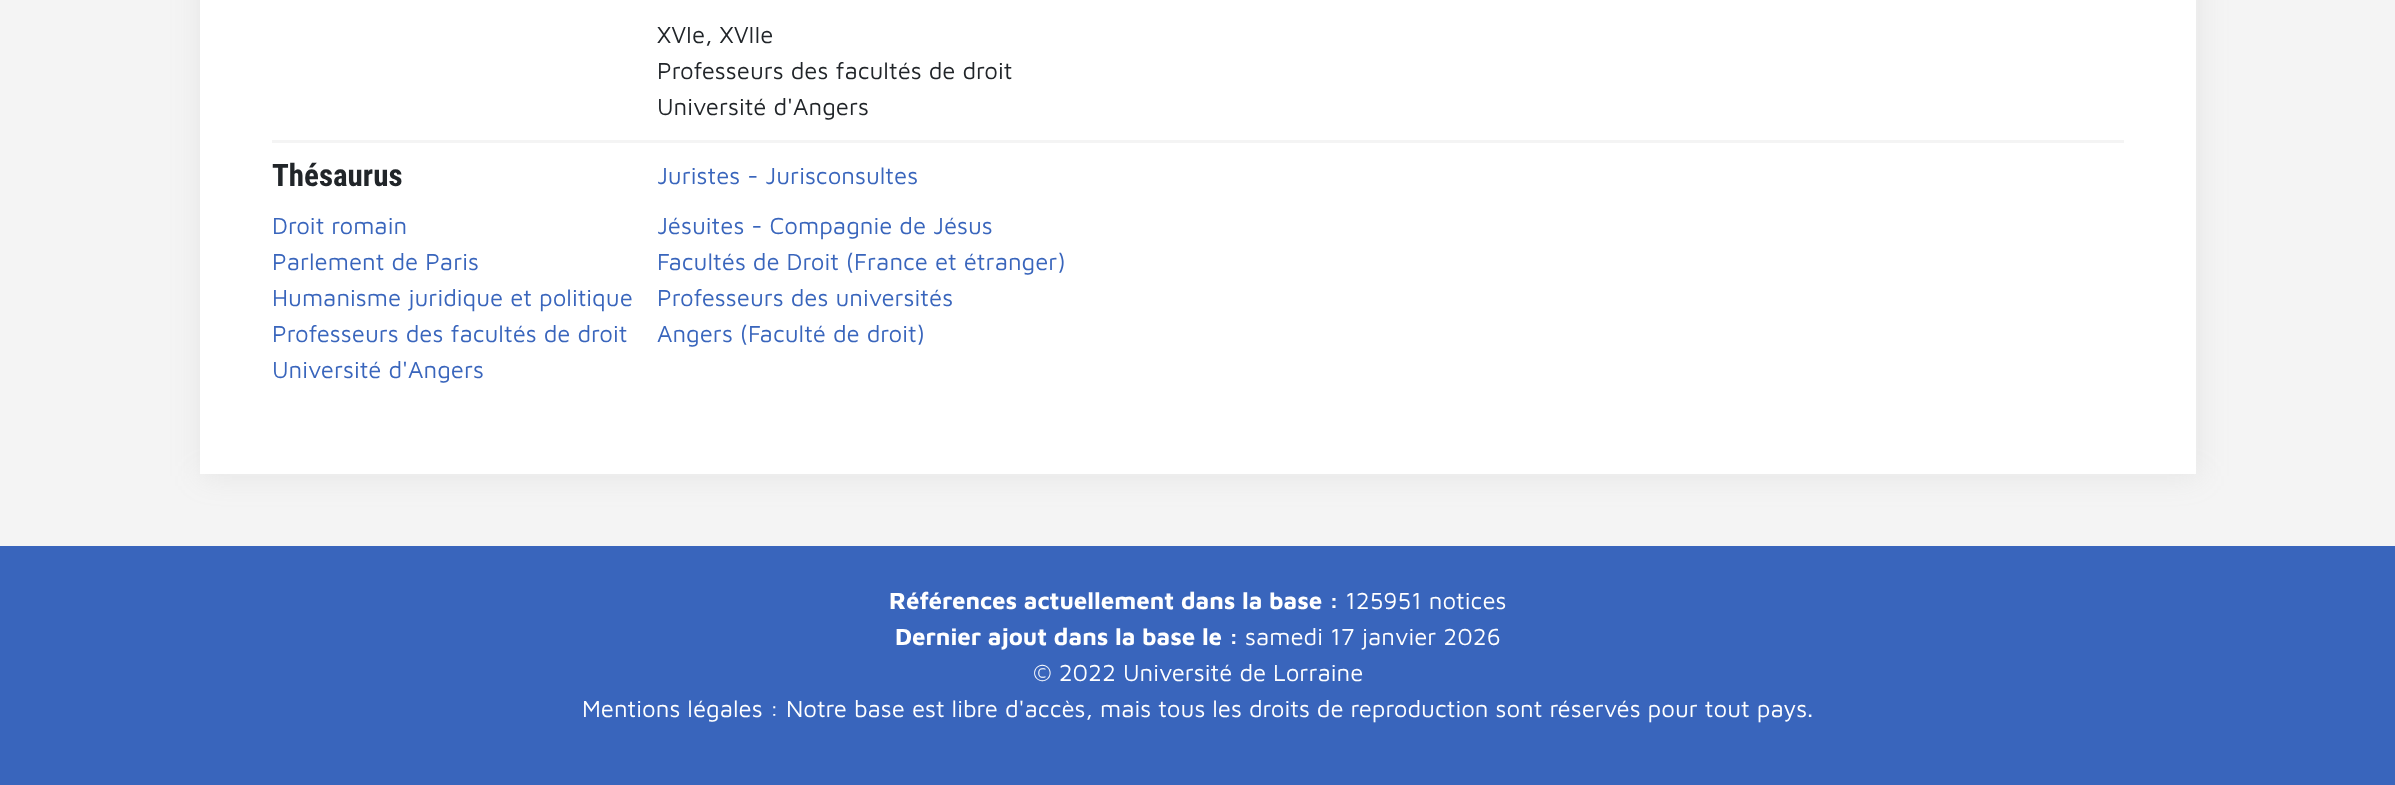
async function draw(canvas) {
  canvas.width = 2395;
  canvas.height = 785;
  const ctx = canvas.getContext('2d');
  ctx.miterLimit = 4;
  ctx.fontKerning = 'normal';
  function label(s, x, y, font, color) {
    ctx.font = font;
    ctx.fillStyle = color;
    ctx.fillText(s, x, y);
  }
  function rect(x, y, w, h, color) {
    ctx.fillStyle = color;
    ctx.fillRect(x, y, w, h);
  }

  rect(0, 0, 2395, 785, '#f4f4f4');
  ctx.fillStyle = '#a2a2a22b';
  ctx.filter = 'blur(15px)';
  ctx.beginPath();
  ctx.rect(201, -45, 1997, 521);
  ctx.fill();
  ctx.filter = 'none';
  rect(200, 0, 1996, 474, '#fff');
  rect(272, 140, 1852, 3, '#f4f4f4');
  label('XVIe, XVIIe', 657, 43, '24px Maven Pro', '#212529');
  label('Professeurs des facultés de droit', 657, 79, '24px Maven Pro', '#212529');
  label('Université d\'Angers', 657, 115, '24px Maven Pro', '#212529');
  label('Thésaurus', 272, 186, 'bold 31px Roboto Condensed', '#212529');
  label('Juristes - Jurisconsultes', 657, 184, '24px Maven Pro', '#3965bc');
  label('Droit romain', 272, 234, '24px Maven Pro', '#3965bc');
  label('Jésuites - Compagnie de Jésus', 657, 234, '24px Maven Pro', '#3965bc');
  label('Parlement de Paris', 272, 270, '24px Maven Pro', '#3965bc');
  label('Facultés de Droit (France et étranger)', 657, 270, '24px Maven Pro', '#3965bc');
  label('Humanisme juridique et politique', 272, 306, '24px Maven Pro', '#3965bc');
  label('Professeurs des universités', 657, 306, '24px Maven Pro', '#3965bc');
  label('Professeurs des facultés de droit', 272, 342, '24px Maven Pro', '#3965bc');
  label('Angers (Faculté de droit)', 657, 342, '24px Maven Pro', '#3965bc');
  label('Université d\'Angers', 272, 378, '24px Maven Pro', '#3965bc');
  rect(0, 546, 2395, 239, '#3965bc');
  label('Références actuellement dans la base :', 889, 609, 'bold 24px Maven Pro', '#fff');
  label('125951 notices', 1345, 609, '24px Maven Pro', '#fff');
  label('Dernier ajout dans la base le :', 895, 645, 'bold 24px Maven Pro', '#fff');
  label('samedi 17 janvier 2026', 1245, 645, '24px Maven Pro', '#fff');
  label('© 2022 Université de Lorraine', 1033, 681, '24px Maven Pro', '#fff');
  label('Mentions légales : Notre base est libre d\'accès, mais tous les droits de reproduction sont réservés pour tout pays.', 582, 717, '24px Maven Pro', '#fff');
}

draw(document.querySelector('canvas'));
